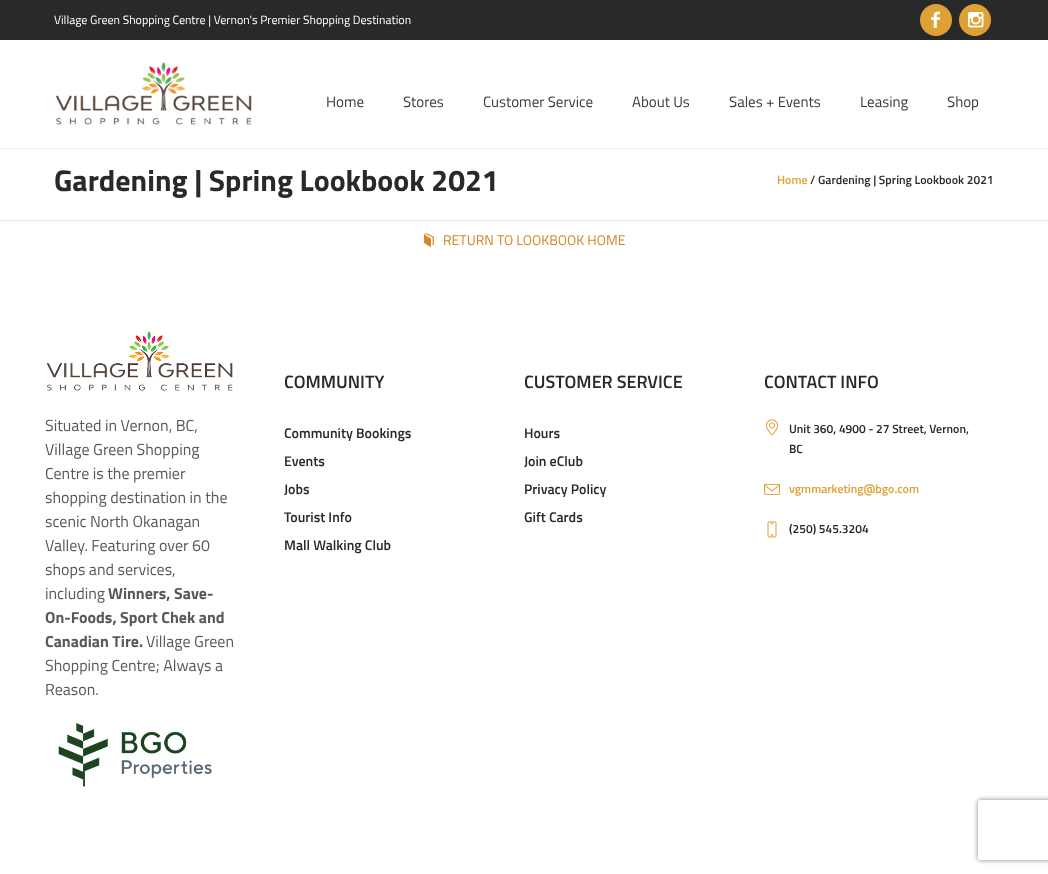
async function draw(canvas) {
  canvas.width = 1048;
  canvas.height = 874;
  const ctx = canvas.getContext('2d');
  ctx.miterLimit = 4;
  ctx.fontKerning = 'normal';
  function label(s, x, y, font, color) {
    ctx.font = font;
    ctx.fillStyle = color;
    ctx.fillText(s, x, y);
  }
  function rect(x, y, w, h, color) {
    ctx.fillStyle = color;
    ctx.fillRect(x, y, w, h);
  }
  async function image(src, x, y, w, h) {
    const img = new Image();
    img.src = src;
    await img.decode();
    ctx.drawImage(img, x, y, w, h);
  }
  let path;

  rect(0, 0, 1048, 874, '#fff');
  ctx.save();
  ctx.beginPath();
  ctx.rect(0, 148, 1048, 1);
  ctx.clip();
  ctx.fillStyle = '#0000000d';
  ctx.filter = 'blur(0.5px)';
  ctx.beginPath();
  ctx.rect(0, 1, 1048, 148);
  ctx.fill();
  ctx.filter = 'none';
  ctx.restore();
  rect(0, 0, 1048, 40, '#292929');
  label('Village Green Shopping Centre | Vernon\'s Premier Shopping Destination', 54, 24, '12px Titillium Web', '#fff');
  ctx.fillStyle = '#e0a134';
  ctx.beginPath();
  ctx.arc(936, 20, 16, 0, 2 * Math.PI);
  ctx.fill();
  await image('assets/img1.png', 931, 11, 9, 17);
  ctx.beginPath();
  ctx.arc(975, 20, 16, 0, 2 * Math.PI);
  ctx.fill();
  await image('assets/img2.png', 968, 12, 16, 16);
  await image('assets/img3.png', 55, 61, 197, 64);
  label('Home', 326, 107, '15px Titillium Web', '#393939');
  label('Stores', 403, 107, '15px Titillium Web', '#393939');
  label('Customer Service', 483, 107, '15px Titillium Web', '#393939');
  label('About Us', 632, 107, '15px Titillium Web', '#393939');
  label('Sales + Events', 729, 107, '15px Titillium Web', '#393939');
  label('Leasing', 860, 107, '15px Titillium Web', '#393939');
  label('Shop', 947, 107, '15px Titillium Web', '#393939');
  rect(0, 220, 1048, 1, '#e4e4e4');
  label('Gardening | Spring Lookbook 2021', 54, 191, 'bold 30px Titillium Web', '#292929');
  label('Home', 777, 184, '600 12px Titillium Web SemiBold', '#e0a134');
  label('/ Gardening | Spring Lookbook 2021', 810, 184, '600 12px Titillium Web SemiBold', '#292929');
  await image('assets/img4.png', 424, 233, 10, 14);
  label('RETURN TO LOOKBOOK HOME', 443, 245, '14px Titillium Web', '#d68528');
  await image('assets/img5.png', 46, 331, 187, 60);
  label('Situated in Vernon, BC,', 45, 431, '16px Titillium Web', '#595959');
  label('Village Green Shopping', 45, 455, '16px Titillium Web', '#595959');
  label('Centre is the premier', 45, 479, '16px Titillium Web', '#595959');
  label('shopping destination in the', 45, 503, '16px Titillium Web', '#595959');
  label('scenic North Okanagan', 45, 527, '16px Titillium Web', '#595959');
  label('Valley. Featuring over 60', 45, 551, '16px Titillium Web', '#595959');
  label('shops and services,', 45, 575, '16px Titillium Web', '#595959');
  label('including', 45, 599, '16px Titillium Web', '#595959');
  label('Winners, Save-', 108, 599, 'bold 16px Titillium Web', '#595959');
  label('On-Foods, Sport Chek and', 45, 623, 'bold 16px Titillium Web', '#595959');
  label('Canadian Tire.', 45, 647, 'bold 16px Titillium Web', '#595959');
  label('Village Green', 146, 647, '16px Titillium Web', '#595959');
  label('Shopping Centre; Always a', 45, 671, '16px Titillium Web', '#595959');
  label('Reason.', 45, 695, '16px Titillium Web', '#595959');
  await image('assets/img6.png', 58, 723, 154, 64);
  label('COMMUNITY', 284, 388, '600 18px Titillium Web SemiBold', '#292929');
  label('Community Bookings', 284, 438, '600 14px Titillium Web SemiBold', '#292929');
  label('Events', 284, 466, '600 14px Titillium Web SemiBold', '#292929');
  label('Jobs', 284, 494, '600 14px Titillium Web SemiBold', '#292929');
  label('Tourist Info', 284, 522, '600 14px Titillium Web SemiBold', '#292929');
  label('Mall Walking Club', 284, 550, '600 14px Titillium Web SemiBold', '#292929');
  label('CUSTOMER SERVICE', 524, 388, '600 18px Titillium Web SemiBold', '#292929');
  label('Hours', 524, 438, '600 14px Titillium Web SemiBold', '#292929');
  label('Join eClub', 524, 466, '600 14px Titillium Web SemiBold', '#292929');
  label('Privacy Policy', 524, 494, '600 14px Titillium Web SemiBold', '#292929');
  label('Gift Cards', 524, 522, '600 14px Titillium Web SemiBold', '#292929');
  label('CONTACT INFO', 764, 388, '600 18px Titillium Web SemiBold', '#292929');
  await image('assets/img7.png', 766, 419, 12, 17);
  label('Unit 360, 4900 - 27 Street, Vernon,', 789, 433, '600 12px Titillium Web SemiBold', '#292929');
  label('BC', 789, 453, '600 12px Titillium Web SemiBold', '#292929');
  await image('assets/img8.png', 764, 483, 16, 12);
  label('vgmmarketing@bgo.com', 789, 493, '600 12px Titillium Web SemiBold', '#e0a134');
  await image('assets/img9.png', 767, 521, 10, 17);
  label('(250) 545.3204', 789, 533, '600 12px Titillium Web SemiBold', '#292929');
  ctx.save();
  path = new Path2D('M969 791H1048V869H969ZM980 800H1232C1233 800 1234 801 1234 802V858C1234 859 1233 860 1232 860H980C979 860 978 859 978 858V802C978 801 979 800 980 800Z');
  ctx.clip(path, 'evenodd');
  ctx.fillStyle = '#808080';
  ctx.filter = 'blur(2.5px)';
  ctx.beginPath();
  ctx.roundRect(978, 800, 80, 60, 2);
  ctx.fill();
  ctx.filter = 'none';
  ctx.restore();
}

draw(document.querySelector('canvas'));
